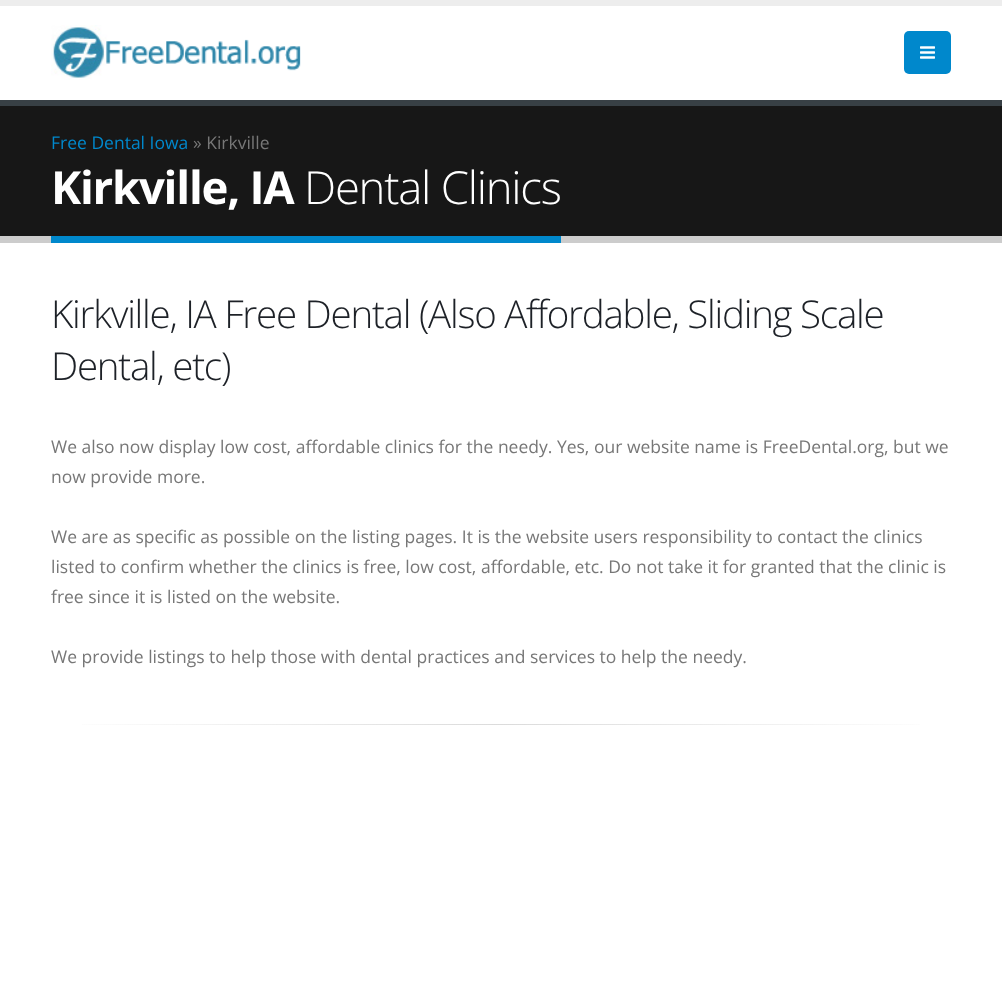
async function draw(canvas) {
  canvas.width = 1002;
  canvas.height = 994;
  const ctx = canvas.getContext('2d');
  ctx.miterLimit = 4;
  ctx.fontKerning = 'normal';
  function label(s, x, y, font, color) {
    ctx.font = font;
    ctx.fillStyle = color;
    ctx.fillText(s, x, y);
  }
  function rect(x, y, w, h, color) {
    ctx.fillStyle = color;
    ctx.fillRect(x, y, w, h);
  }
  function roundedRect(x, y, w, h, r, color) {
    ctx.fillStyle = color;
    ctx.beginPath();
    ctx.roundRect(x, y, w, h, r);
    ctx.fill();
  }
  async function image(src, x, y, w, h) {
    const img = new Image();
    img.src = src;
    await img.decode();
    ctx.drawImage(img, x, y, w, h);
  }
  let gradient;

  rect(0, 0, 1002, 994, '#fff');
  rect(0, 0, 1002, 6, '#ededed');
  await image('assets/img1.png', 51, 25, 250, 55);
  roundedRect(904, 31, 47, 43, 5, '#08c');
  await image('assets/img2.png', 920, 46, 15, 13);
  rect(0, 106, 1002, 130, '#171717');
  rect(0, 100, 1002, 6, '#384045');
  rect(0, 236, 1002, 7, '#ccc');
  label('Free Dental Iowa', 51, 149, '17.5px Open Sans', '#08c');
  label('» Kirkville', 193, 149, '17.5px Open Sans', '#777');
  rect(51, 236, 510, 7, '#08c');
  ctx.letterSpacing = '-1.25px';
  label('Kirkville, IA', 51, 204, 'bold 45.5px Open Sans', '#fff');
  label('Dental Clinics', 304, 204, '300 45.5px Open Sans', '#fff');
  label('Kirkville, IA Free Dental (Also Affordable, Sliding Scale', 51, 328, '300 38.5px Open Sans', '#1d2127');
  label('Dental, etc)', 51, 380, '300 38.5px Open Sans', '#1d2127');
  ctx.letterSpacing = '0px';
  label('We also now display low cost, affordable clinics for the needy. Yes, our website name is FreeDental.org, but we', 51, 453, '17.5px Open Sans', '#777');
  label('now provide more.', 51, 483, '17.5px Open Sans', '#777');
  label('We are as specific as possible on the listing pages. It is the website users responsibility to contact the clinics', 51, 543, '17.5px Open Sans', '#777');
  label('listed to confirm whether the clinics is free, low cost, affordable, etc. Do not take it for granted that the clinic is', 51, 573, '17.5px Open Sans', '#777');
  label('free since it is listed on the website.', 51, 603, '17.5px Open Sans', '#777');
  label('We provide listings to help those with dental practices and services to help the needy.', 51, 663, '17.5px Open Sans', '#777');
  gradient = ctx.createLinearGradient(51, 724, 951, 724);
  gradient.addColorStop(0, '#fff');
  gradient.addColorStop(0.5, '#dbdbdb');
  gradient.addColorStop(1, '#fff');
  ctx.fillStyle = gradient;
  ctx.fillRect(82, 724, 838, 1);
}

draw(document.querySelector('canvas'));
